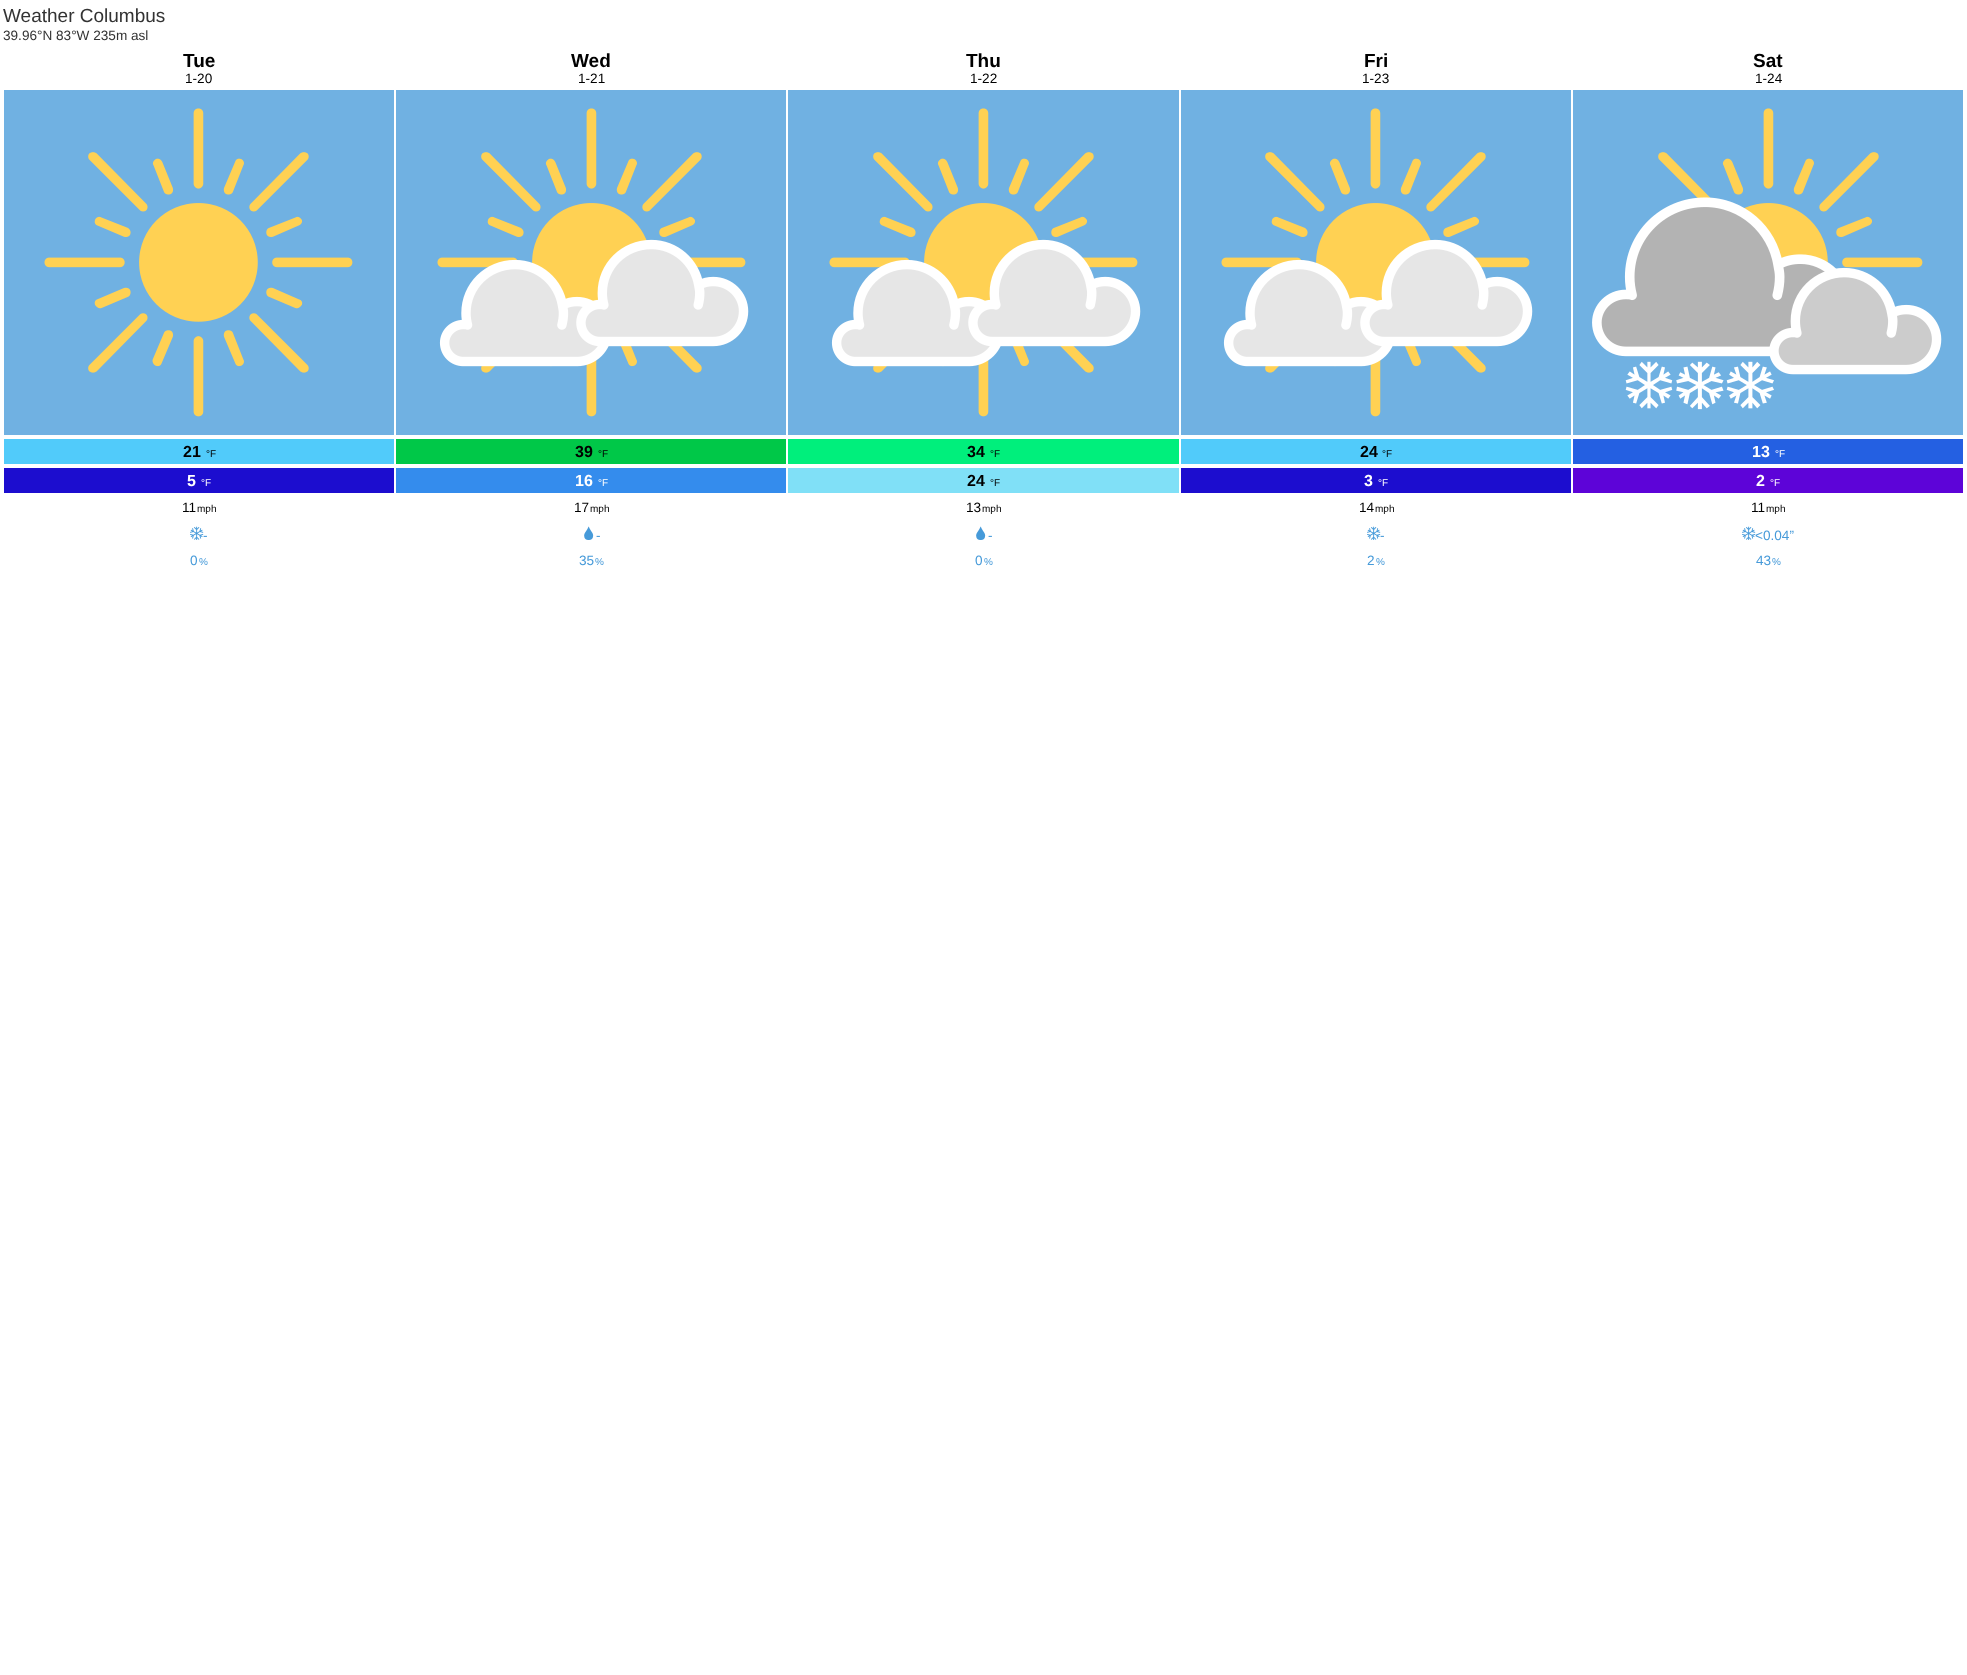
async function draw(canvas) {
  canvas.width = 1967;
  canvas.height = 1675;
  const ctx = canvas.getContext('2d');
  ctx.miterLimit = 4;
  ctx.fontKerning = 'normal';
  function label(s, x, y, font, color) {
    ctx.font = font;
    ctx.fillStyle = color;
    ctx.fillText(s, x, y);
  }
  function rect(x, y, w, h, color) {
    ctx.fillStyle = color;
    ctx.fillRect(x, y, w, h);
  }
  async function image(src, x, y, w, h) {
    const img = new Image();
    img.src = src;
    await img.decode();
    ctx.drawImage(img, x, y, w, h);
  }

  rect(0, 0, 1967, 1675, '#fff');
  label('Weather Columbus', 3, 22, '19px Liberation Sans', '#333');
  label('39.96°N 83°W 235m asl', 3, 40, '13.6px Liberation Sans', '#333');
  label('Tue', 183, 67, 'bold 19px Liberation Sans', '#000');
  label('1-20', 185, 83, '13.6px Liberation Sans', '#000');
  rect(4, 90, 390, 345, '#70b1e2');
  await image('assets/img1.png', 44, 108, 309, 309);
  rect(4, 439, 390, 25, '#51cbfa');
  label('21', 183, 457, 'bold 16px Liberation Sans', '#000');
  label('°F', 206, 457, '10px Liberation Sans', '#000');
  rect(4, 468, 390, 25, '#1c0dcf');
  label('5', 187, 486, 'bold 16px Liberation Sans', '#fff');
  label('°F', 201, 486, '10px Liberation Sans', '#fff');
  label('11', 182, 512, '13.6px Liberation Sans', '#000');
  label('mph', 197, 512, '10px Liberation Sans', '#000');
  await image('assets/img2.png', 190, 526, 14, 14);
  label('-', 203, 540, '13.6px Liberation Sans', '#469ad9');
  label('0', 190, 565, '13.6px Liberation Sans', '#469ad9');
  label('%', 199, 565, '10px Liberation Sans', '#469ad9');
  label('Wed', 571, 67, 'bold 19px Liberation Sans', '#000');
  label('1-21', 578, 83, '13.6px Liberation Sans', '#000');
  rect(396, 90, 390, 345, '#70b1e2');
  await image('assets/img3.png', 437, 108, 312, 309);
  rect(396, 439, 390, 25, '#00c848');
  label('39', 575, 457, 'bold 16px Liberation Sans', '#000');
  label('°F', 598, 457, '10px Liberation Sans', '#000');
  rect(396, 468, 390, 25, '#348ced');
  label('16', 575, 486, 'bold 16px Liberation Sans', '#fff');
  label('°F', 598, 486, '10px Liberation Sans', '#fff');
  label('17', 574, 512, '13.6px Liberation Sans', '#000');
  label('mph', 590, 512, '10px Liberation Sans', '#000');
  await image('assets/img4.png', 584, 526, 10, 14);
  label('-', 596, 540, '13.6px Liberation Sans', '#469ad9');
  label('35', 579, 565, '13.6px Liberation Sans', '#469ad9');
  label('%', 595, 565, '10px Liberation Sans', '#469ad9');
  label('Thu', 966, 67, 'bold 19px Liberation Sans', '#000');
  label('1-22', 970, 83, '13.6px Liberation Sans', '#000');
  rect(788, 90, 391, 345, '#70b1e2');
  await image('assets/img3.png', 829, 108, 312, 309);
  rect(788, 439, 391, 25, '#00ef7c');
  label('34', 967, 457, 'bold 16px Liberation Sans', '#000');
  label('°F', 990, 457, '10px Liberation Sans', '#000');
  rect(788, 468, 391, 25, '#80e0f7');
  label('24', 967, 486, 'bold 16px Liberation Sans', '#000');
  label('°F', 990, 486, '10px Liberation Sans', '#000');
  label('13', 966, 512, '13.6px Liberation Sans', '#000');
  label('mph', 982, 512, '10px Liberation Sans', '#000');
  await image('assets/img4.png', 976, 526, 10, 14);
  label('-', 988, 540, '13.6px Liberation Sans', '#469ad9');
  label('0', 975, 565, '13.6px Liberation Sans', '#469ad9');
  label('%', 984, 565, '10px Liberation Sans', '#469ad9');
  label('Fri', 1364, 67, 'bold 19px Liberation Sans', '#000');
  label('1-23', 1362, 83, '13.6px Liberation Sans', '#000');
  rect(1181, 90, 390, 345, '#70b1e2');
  await image('assets/img3.png', 1221, 108, 312, 309);
  rect(1181, 439, 390, 25, '#51cbfa');
  label('24', 1360, 457, 'bold 16px Liberation Sans', '#000');
  label('°F', 1382, 457, '10px Liberation Sans', '#000');
  rect(1181, 468, 390, 25, '#1c0dcf');
  label('3', 1364, 486, 'bold 16px Liberation Sans', '#fff');
  label('°F', 1378, 486, '10px Liberation Sans', '#fff');
  label('14', 1359, 512, '13.6px Liberation Sans', '#000');
  label('mph', 1375, 512, '10px Liberation Sans', '#000');
  label('-', 1380, 540, '13.6px Liberation Sans', '#469ad9');
  await image('assets/img5.png', 1367, 526, 14, 14);
  label('2', 1367, 565, '13.6px Liberation Sans', '#469ad9');
  label('%', 1376, 565, '10px Liberation Sans', '#469ad9');
  label('Sat', 1753, 67, 'bold 19px Liberation Sans', '#000');
  label('1-24', 1755, 83, '13.6px Liberation Sans', '#000');
  rect(1573, 90, 390, 345, '#70b1e2');
  await image('assets/img6.png', 1592, 108, 350, 302);
  rect(1573, 439, 390, 25, '#2460e2');
  label('13', 1752, 457, 'bold 16px Liberation Sans', '#fff');
  label('°F', 1775, 457, '10px Liberation Sans', '#fff');
  rect(1573, 468, 390, 25, '#5d04d8');
  label('2', 1756, 486, 'bold 16px Liberation Sans', '#fff');
  label('°F', 1770, 486, '10px Liberation Sans', '#fff');
  label('11', 1751, 512, '13.6px Liberation Sans', '#000');
  label('mph', 1766, 512, '10px Liberation Sans', '#000');
  await image('assets/img2.png', 1742, 526, 14, 14);
  label('<0.04”', 1755, 540, '13.6px Liberation Sans', '#469ad9');
  label('43', 1756, 565, '13.6px Liberation Sans', '#469ad9');
  label('%', 1772, 565, '10px Liberation Sans', '#469ad9');
}

draw(document.querySelector('canvas'));
